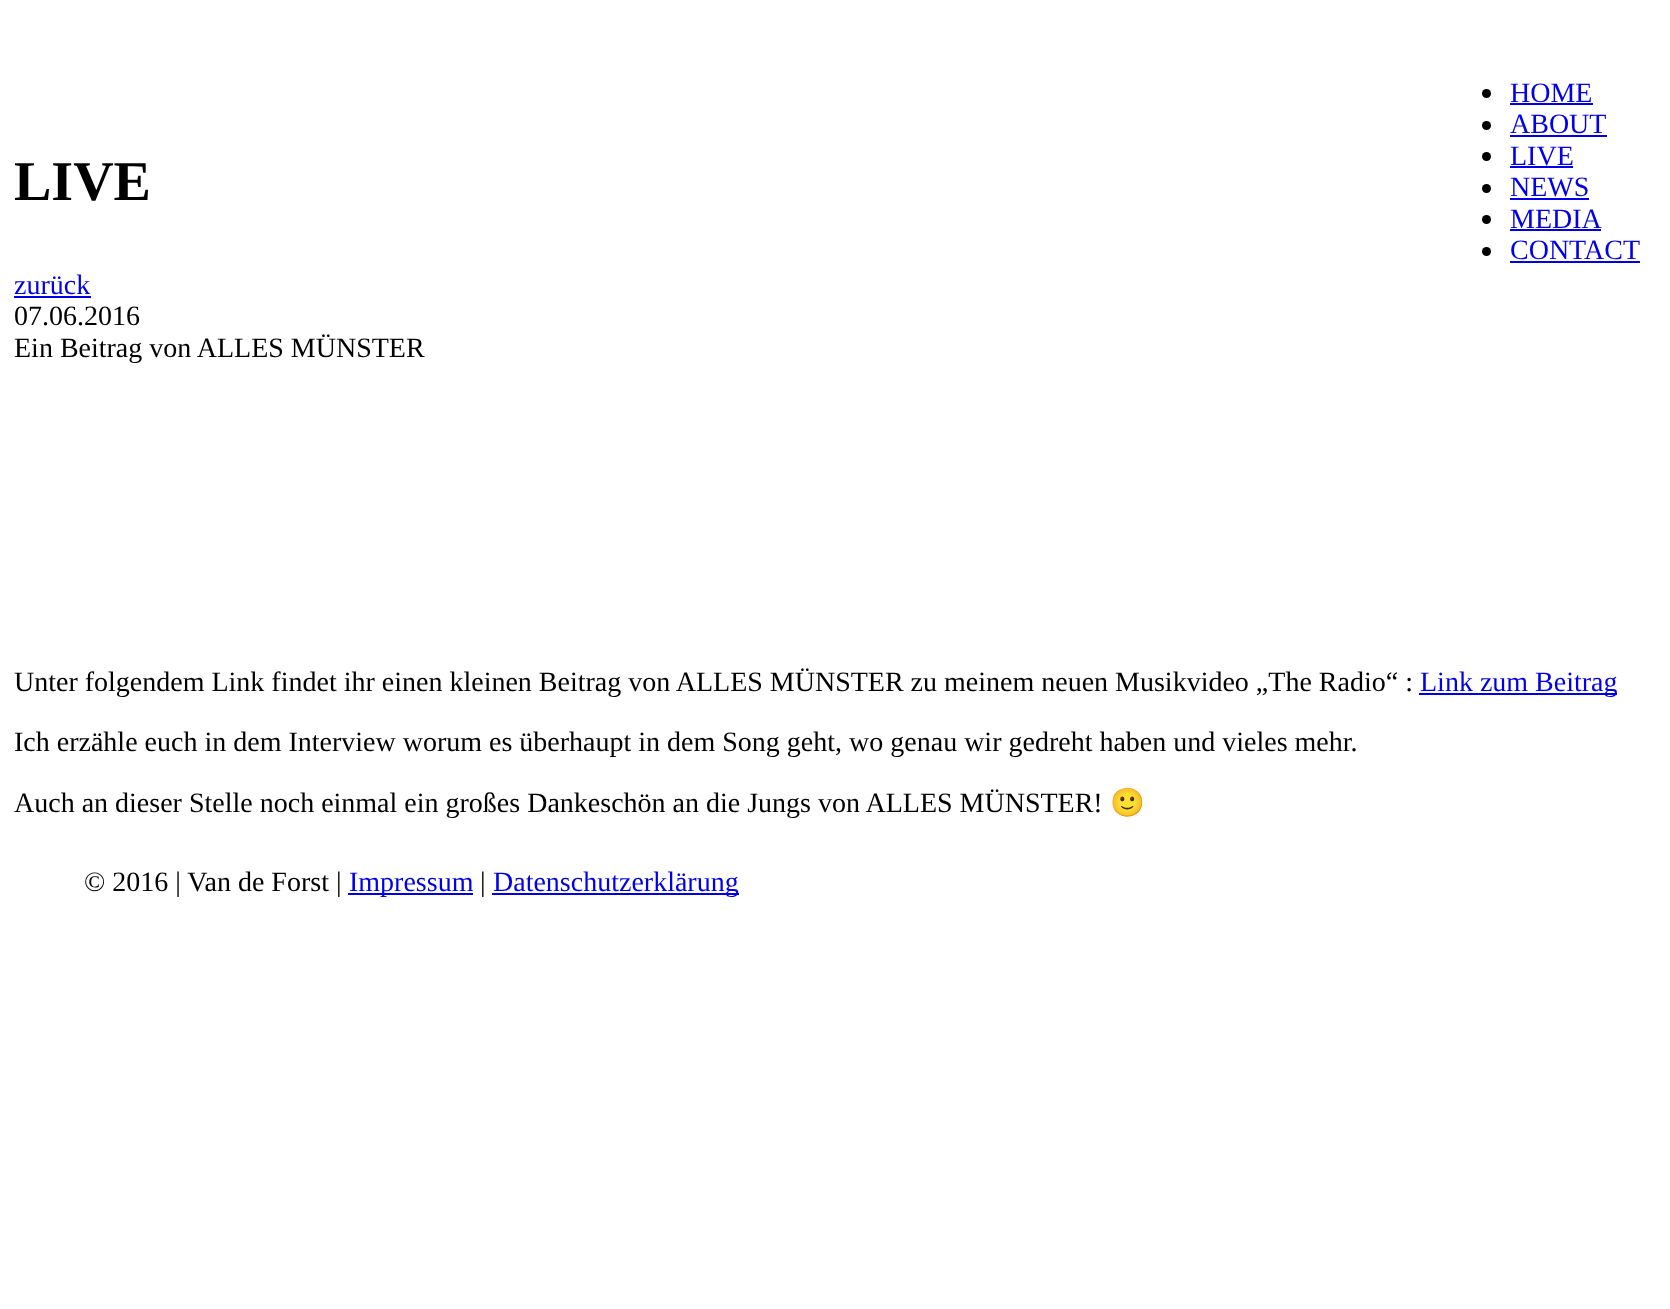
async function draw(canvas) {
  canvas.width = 1670;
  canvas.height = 1309;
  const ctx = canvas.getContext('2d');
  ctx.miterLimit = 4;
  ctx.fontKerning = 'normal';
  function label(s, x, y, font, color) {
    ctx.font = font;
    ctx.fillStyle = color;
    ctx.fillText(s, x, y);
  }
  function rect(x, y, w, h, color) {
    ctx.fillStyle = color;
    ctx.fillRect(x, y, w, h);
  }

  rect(0, 0, 1670, 1309, '#fff');
  ctx.fillStyle = '#000';
  ctx.beginPath();
  ctx.arc(1486.5, 93.5, 4.5, 0, 2 * Math.PI);
  ctx.fill();
  label('HOME', 1510, 102, '28px Liberation Serif', '#00e');
  rect(1510, 103, 83, 2, '#00e');
  ctx.fillStyle = '#000';
  ctx.beginPath();
  ctx.arc(1486.5, 125.5, 4.5, 0, 2 * Math.PI);
  ctx.fill();
  label('ABOUT', 1510, 133, '28px Liberation Serif', '#00e');
  rect(1510, 135, 97, 2, '#00e');
  ctx.fillStyle = '#000';
  ctx.beginPath();
  ctx.arc(1486.5, 156.5, 4.5, 0, 2 * Math.PI);
  ctx.fill();
  label('LIVE', 1510, 165, '28px Liberation Serif', '#00e');
  rect(1510, 166, 63, 2, '#00e');
  ctx.fillStyle = '#000';
  ctx.beginPath();
  ctx.arc(1486.5, 188.5, 4.5, 0, 2 * Math.PI);
  ctx.fill();
  label('NEWS', 1510, 196, '28px Liberation Serif', '#00e');
  rect(1510, 198, 79, 2, '#00e');
  ctx.fillStyle = '#000';
  ctx.beginPath();
  ctx.arc(1486.5, 219.5, 4.5, 0, 2 * Math.PI);
  ctx.fill();
  label('MEDIA', 1510, 228, '28px Liberation Serif', '#00e');
  rect(1510, 229, 91, 2, '#00e');
  ctx.fillStyle = '#000';
  ctx.beginPath();
  ctx.arc(1486.5, 251.5, 4.5, 0, 2 * Math.PI);
  ctx.fill();
  label('CONTACT', 1510, 259, '28px Liberation Serif', '#00e');
  rect(1510, 261, 130, 2, '#00e');
  label('LIVE', 14, 200, 'bold 56px Liberation Serif', '#000');
  label('zurück', 14, 294, '28px Liberation Serif', '#00e');
  rect(14, 296, 77, 2, '#00e');
  label('07.06.2016', 14, 325, '28px Liberation Serif', '#000');
  label('Ein Beitrag von ALLES MÜNSTER', 14, 357, '28px Liberation Serif', '#000');
  label('Unter folgendem Link findet ihr einen kleinen Beitrag von ALLES MÜNSTER zu meinem neuen Musikvideo „The Radio“ :', 14, 691, '28px Liberation Serif', '#000');
  rect(1419, 693, 198, 2, '#00e');
  label('Link zum Beitrag', 1420, 691, '28px Liberation Serif', '#00e');
  label('Ich erzähle euch in dem Interview worum es überhaupt in dem Song geht, wo genau wir gedreht haben und vieles mehr.', 14, 751, '28px Liberation Serif', '#000');
  label('Auch an dieser Stelle noch einmal ein großes Dankeschön an die Jungs von ALLES MÜNSTER!', 14, 812, '28px Liberation Serif', '#000');
  label('🙂', 1110, 812, '28px Noto Color Emoji', '#000');
  label('© 2016 | Van de Forst |', 84, 891, '28px Liberation Serif', '#000');
  rect(348, 893, 125, 2, '#00e');
  label('Impressum', 349, 891, '28px Liberation Serif', '#00e');
  label('|', 480, 891, '28px Liberation Serif', '#000');
  rect(492, 893, 247, 2, '#00e');
  label('Datenschutzerklärung', 493, 891, '28px Liberation Serif', '#00e');
}

draw(document.querySelector('canvas'));
